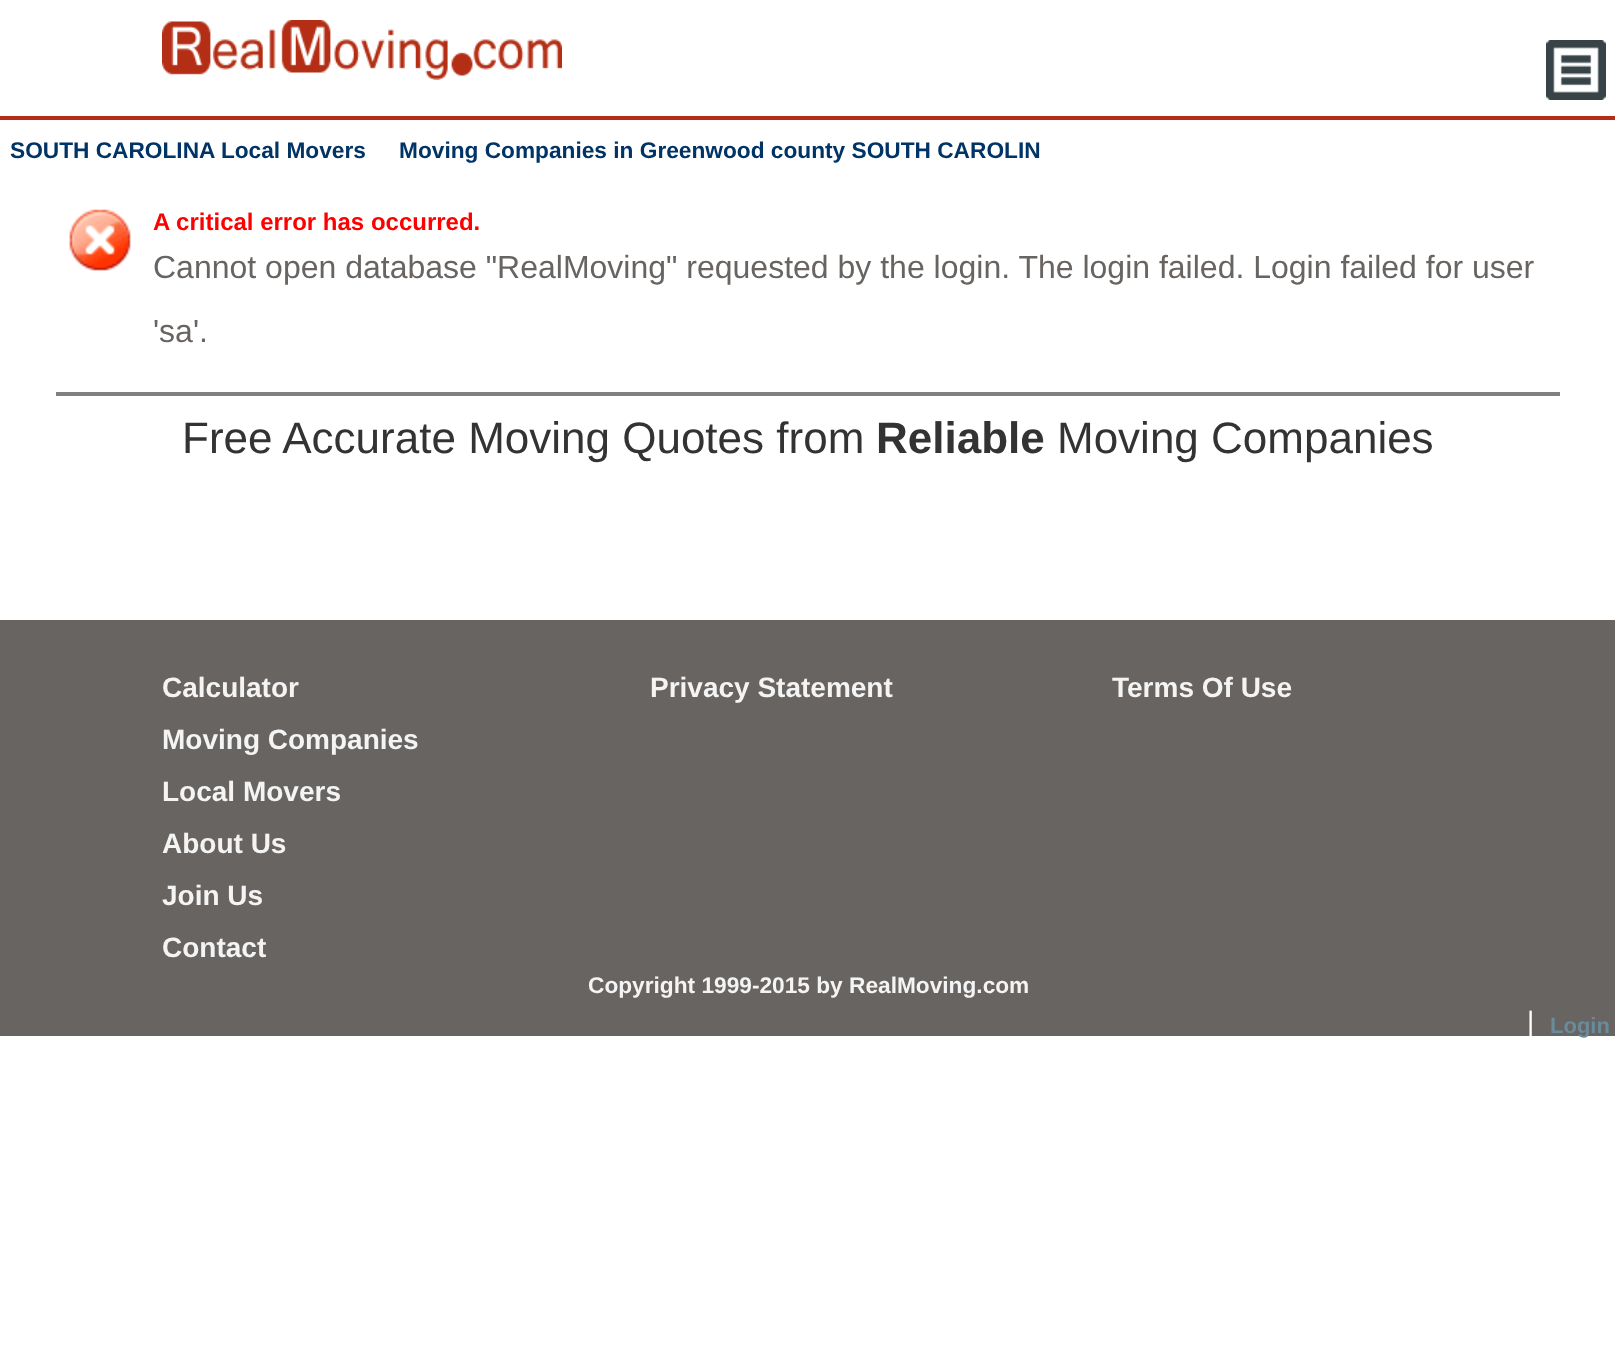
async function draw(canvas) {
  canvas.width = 1615;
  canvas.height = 1363;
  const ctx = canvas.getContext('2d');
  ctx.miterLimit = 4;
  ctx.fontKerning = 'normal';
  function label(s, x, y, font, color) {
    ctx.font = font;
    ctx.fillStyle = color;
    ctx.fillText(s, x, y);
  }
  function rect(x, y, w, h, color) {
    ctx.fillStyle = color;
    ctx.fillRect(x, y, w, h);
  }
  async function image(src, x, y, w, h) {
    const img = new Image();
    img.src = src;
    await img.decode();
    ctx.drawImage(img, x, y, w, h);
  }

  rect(0, 0, 1615, 1363, '#fff');
  rect(0, 116, 1615, 4, '#b32e14');
  await image('assets/img1.png', 162, 20, 400, 60);
  await image('assets/img2.png', 1546, 40, 60, 60);
  label('SOUTH CAROLINA Local Movers', 10, 158, 'bold 22.7px Liberation Sans', '#036');
  label('Moving Companies in Greenwood county SOUTH CAROLIN', 399, 158, 'bold 22.7px Liberation Sans', '#036');
  await image('assets/img3.png', 69, 209, 62, 62);
  label('A critical error has occurred.', 153, 230, 'bold 24px Liberation Sans', '#f00');
  label('Cannot open database "RealMoving" requested by the login. The login failed. Login failed for user', 153, 278, '32px Liberation Sans', '#686461');
  label('\'sa\'.', 153, 342, '32px Liberation Sans', '#686461');
  rect(58, 394, 1500, 2, '#808080');
  rect(56, 392, 1504, 2, '#808080');
  rect(1558, 392, 2, 4, '#808080');
  rect(56, 392, 2, 4, '#808080');
  label('Free Accurate Moving Quotes from', 182, 453, '44px Liberation Sans', '#333');
  label('Reliable', 876, 453, 'bold 44px Liberation Sans', '#333');
  label('Moving Companies', 1057, 453, '44px Liberation Sans', '#333');
  rect(0, 620, 1615, 416, '#686461');
  label('Calculator', 162, 697, 'bold 28px Liberation Sans', '#f4f4f4');
  label('Moving Companies', 162, 749, 'bold 28px Liberation Sans', '#f4f4f4');
  label('Local Movers', 162, 801, 'bold 28px Liberation Sans', '#f4f4f4');
  label('About Us', 162, 853, 'bold 28px Liberation Sans', '#f4f4f4');
  label('Join Us', 162, 905, 'bold 28px Liberation Sans', '#f4f4f4');
  label('Contact', 162, 957, 'bold 28px Liberation Sans', '#f4f4f4');
  label('Privacy Statement', 650, 697, 'bold 28px Liberation Sans', '#f4f4f4');
  label('Terms Of Use', 1112, 697, 'bold 28px Liberation Sans', '#f4f4f4');
  label('Copyright 1999-2015 by RealMoving.com', 588, 993, 'bold 22.7px Liberation Sans', '#f4f4f4');
  label('|', 1527, 1031, '28px Liberation Sans', '#fff');
  label('Login', 1550, 1033, 'bold 22px Liberation Sans', '#6a8b9a');
}

draw(document.querySelector('canvas'));
